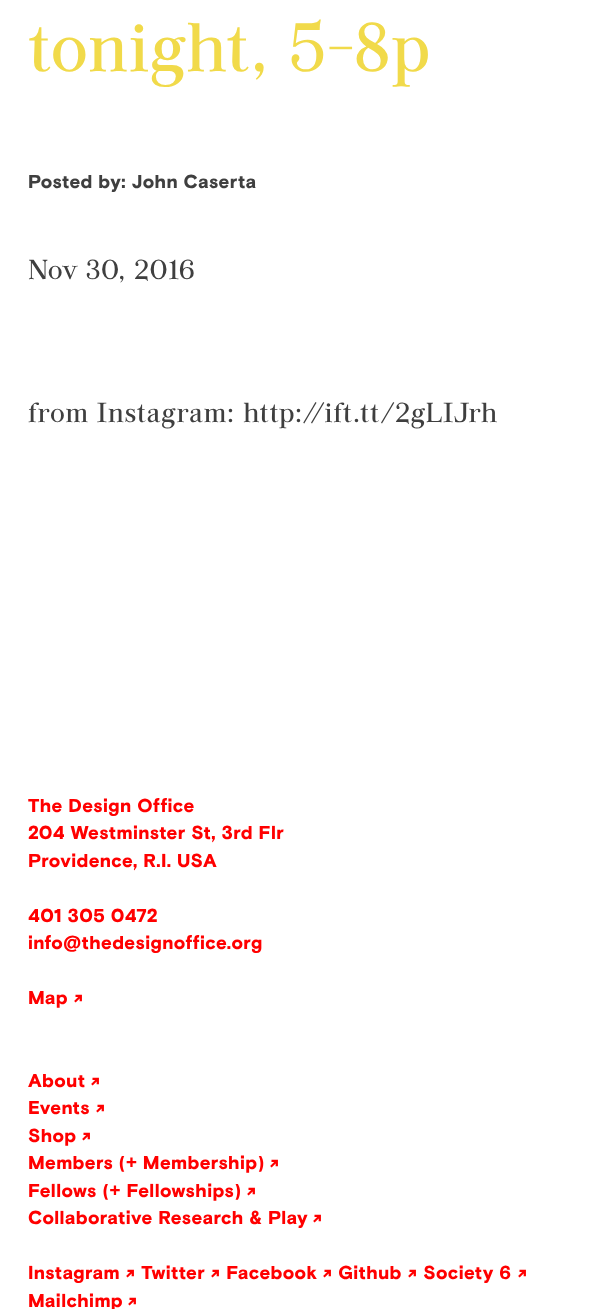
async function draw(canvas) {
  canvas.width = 607;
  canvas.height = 1309;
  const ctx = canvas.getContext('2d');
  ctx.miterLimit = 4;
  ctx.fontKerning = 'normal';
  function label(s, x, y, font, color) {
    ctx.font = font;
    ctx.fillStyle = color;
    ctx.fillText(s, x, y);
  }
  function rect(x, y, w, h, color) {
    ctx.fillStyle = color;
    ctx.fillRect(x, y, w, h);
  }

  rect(0, 0, 607, 1309, '#fff');
  label('tonight, 5-8p', 28, 71, '68.75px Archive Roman', '#f1da4a');
  ctx.letterSpacing = '0.4px';
  label('Posted by: John Caserta', 28, 188, '900 18.75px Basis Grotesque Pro', '#3f3f3f');
  label('Nov 30, 2016', 28, 279, '27.5px Archive Roman', '#3f3f3f');
  label('from Instagram: http://ift.tt/2gLIJrh', 28, 422, '27.5px Archive Roman', '#3f3f3f');
  label('The Design Office', 28, 812, '900 18.75px Basis Grotesque Pro', '#f00');
  label('204 Westminster St, 3rd Flr', 28, 839, '900 18.75px Basis Grotesque Pro', '#f00');
  label('Providence, R.I. USA', 28, 867, '900 18.75px Basis Grotesque Pro', '#f00');
  label('401 305 0472', 28, 922, '900 18.75px Basis Grotesque Pro', '#f00');
  label('info@thedesignoffice.org', 28, 949, '900 18.75px Basis Grotesque Pro', '#f00');
  label('Map', 28, 1004, '900 18.75px Basis Grotesque Pro', '#f00');
  label('↗', 73, 1004, '900 18.75px Basis Grotesque Pro', '#f00');
  label('About', 28, 1087, '900 18.75px Basis Grotesque Pro', '#f00');
  label('↗', 90, 1087, '900 18.75px Basis Grotesque Pro', '#f00');
  label('Events', 28, 1114, '900 18.75px Basis Grotesque Pro', '#f00');
  label('↗', 95, 1114, '900 18.75px Basis Grotesque Pro', '#f00');
  label('Shop', 28, 1142, '900 18.75px Basis Grotesque Pro', '#f00');
  label('↗', 81, 1142, '900 18.75px Basis Grotesque Pro', '#f00');
  label('Members (+ Membership)', 28, 1169, '900 18.75px Basis Grotesque Pro', '#f00');
  label('↗', 269, 1169, '900 18.75px Basis Grotesque Pro', '#f00');
  label('Fellows (+ Fellowships)', 28, 1197, '900 18.75px Basis Grotesque Pro', '#f00');
  label('↗', 246, 1197, '900 18.75px Basis Grotesque Pro', '#f00');
  label('Collaborative Research & Play', 28, 1224, '900 18.75px Basis Grotesque Pro', '#f00');
  label('↗', 312, 1224, '900 18.75px Basis Grotesque Pro', '#f00');
  label('Instagram', 28, 1279, '900 18.75px Basis Grotesque Pro', '#f00');
  label('↗ Twitter', 125, 1279, '900 18.75px Basis Grotesque Pro', '#f00');
  label('↗ Facebook', 210, 1279, '900 18.75px Basis Grotesque Pro', '#f00');
  label('↗ Github', 322, 1279, '900 18.75px Basis Grotesque Pro', '#f00');
  label('↗ Society 6', 407, 1279, '900 18.75px Basis Grotesque Pro', '#f00');
  label('↗', 517, 1279, '900 18.75px Basis Grotesque Pro', '#f00');
  label('Mailchimp', 28, 1307, '900 18.75px Basis Grotesque Pro', '#f00');
  label('↗', 127, 1307, '900 18.75px Basis Grotesque Pro', '#f00');
}

draw(document.querySelector('canvas'));
